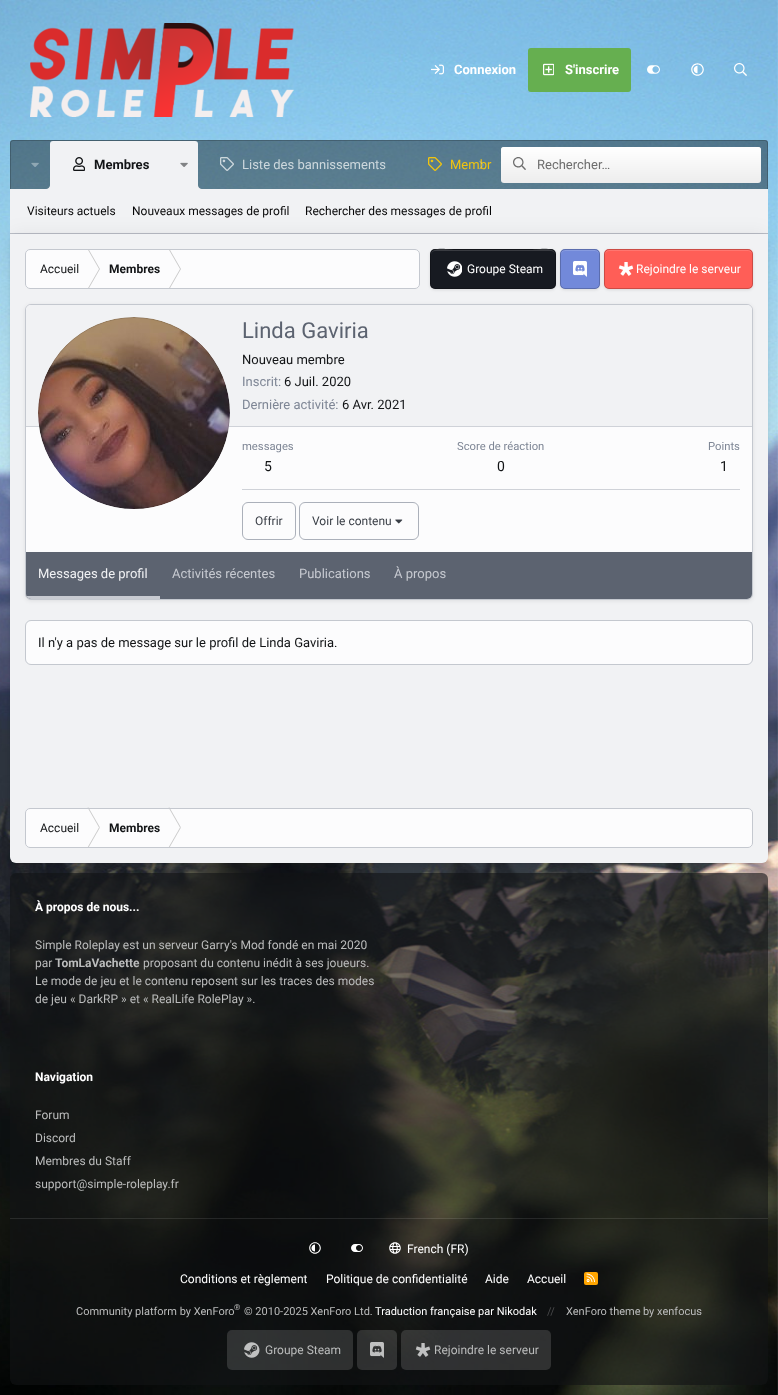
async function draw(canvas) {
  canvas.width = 778;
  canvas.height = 1395;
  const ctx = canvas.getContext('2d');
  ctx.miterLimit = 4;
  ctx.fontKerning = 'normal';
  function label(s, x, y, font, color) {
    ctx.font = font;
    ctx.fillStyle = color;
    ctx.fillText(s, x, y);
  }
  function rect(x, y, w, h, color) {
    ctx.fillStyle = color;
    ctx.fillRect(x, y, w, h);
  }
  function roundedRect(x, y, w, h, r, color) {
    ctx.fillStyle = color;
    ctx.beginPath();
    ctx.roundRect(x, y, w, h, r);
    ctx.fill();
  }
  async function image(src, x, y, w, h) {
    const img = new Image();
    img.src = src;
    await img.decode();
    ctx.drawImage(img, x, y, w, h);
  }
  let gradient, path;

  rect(0, 0, 778, 1395, '#fff');
  await image('assets/img1.png', 0, 0, 778, 1395);
  await image('assets/img2.png', 30, 23, 264, 94);
  await image('assets/img3.png', 431, 64, 13, 11);
  label('Connexion', 454, 74, 'bold 13px Roboto', '#fff');
  roundedRect(528, 48, 103, 44, 3, '#66af50');
  await image('assets/img4.png', 543, 63, 11, 13);
  label('S\'inscrire', 565, 74, 'bold 13px Roboto', '#fff');
  await image('assets/img5.png', 647, 65, 13, 9);
  await image('assets/img6.png', 691, 63, 13, 13);
  await image('assets/img7.png', 734, 63, 13, 13);
  ctx.fillStyle = '#00000066';
  ctx.beginPath();
  ctx.roundRect(10, 140, 758, 49, [3, 3, 0, 0]);
  ctx.fill();
  ctx.fillStyle = '#00000033';
  path = new Path2D('M13 140H765C767 140 768 141 768 143V189H10V143C10 141 11 140 13 140ZM13 141H765C766 141 767 142 767 143V189H11V143C11 142 12 141 13 141Z');
  ctx.fill(path, 'evenodd');
  await image('assets/img8.png', 31, 162, 8, 5);
  ctx.fillStyle = '#f1f2f4';
  ctx.beginPath();
  ctx.roundRect(50, 141, 148, 48, [3, 3, 0, 0]);
  ctx.fill();
  await image('assets/img9.png', 73, 157, 12, 14);
  label('Membres', 94, 169, 'bold 13px Roboto', '#121416');
  await image('assets/img10.png', 180, 162, 8, 5);
  await image('assets/img11.png', 46, 185, 4, 4);
  await image('assets/img12.png', 198, 185, 4, 4);
  await image('assets/img13.png', 220, 157, 14, 14);
  label('Liste des bannissements', 242, 169, '13px Roboto', '#cdd8dd');
  await image('assets/img14.png', 428, 157, 14, 14);
  label('Membr', 450, 169, '13px Roboto', '#f1c40f');
  await image('assets/img15.png', 479, 160, 5, 10);
  roundedRect(501, 147, 260, 36, 3, '#ededed');
  gradient = ctx.createLinearGradient(631, 147, 631, 183);
  gradient.addColorStop(0, '#fff');
  gradient.addColorStop(1, '#ffffff00');
  ctx.fillStyle = gradient;
  ctx.beginPath();
  ctx.roundRect(501, 147, 260, 36, 3);
  ctx.fill();
  await image('assets/img16.png', 513, 157, 13, 13);
  label('Rechercher…', 537, 169, '13px Roboto', '#6d6d6d');
  rect(10, 189, 758, 44, '#f1f2f4');
  rect(10, 233, 758, 1, '#b9bdc6');
  label('Visiteurs actuels', 27, 215, '12px Roboto', '#070708');
  label('Nouveaux messages de profil', 132, 215, '12px Roboto', '#070708');
  label('Rechercher des messages de profil', 305, 215, '12px Roboto', '#070708');
  ctx.fillStyle = '#00000014';
  ctx.filter = 'blur(1.5px)';
  ctx.beginPath();
  ctx.roundRect(10, 235, 758, 629, 6);
  ctx.fill();
  ctx.filter = 'none';
  roundedRect(10, 873, 758, 512, 6, '#12141699');
  ctx.fillStyle = '#0000000f';
  ctx.filter = 'blur(10px)';
  ctx.beginPath();
  ctx.roundRect(10, 234, 758, 629, 6);
  ctx.fill();
  ctx.filter = 'none';
  ctx.fillStyle = '#f1f2f4';
  ctx.beginPath();
  ctx.roundRect(10, 234, 758, 629, [0, 0, 6, 6]);
  ctx.fill();
  roundedRect(25, 249, 395, 40, 5, '#fcfcfd');
  ctx.fillStyle = '#cacaca';
  path = new Path2D('M87.5 249H88.5L100 269H99ZM99 269H100L88.5 289H87.5Z');
  ctx.fill(path);
  path = new Path2D('M168.5 249H169.5L181 269H180ZM180 269H181L169.5 289H168.5Z');
  ctx.fill(path);
  ctx.beginPath();
  ctx.roundRect(25.5, 249.5, 394, 39, 4.5);
  ctx.strokeStyle = '#c4c8cf';
  ctx.stroke();
  label('Accueil', 40, 273, '12px Roboto', '#121416');
  label('Membres', 109, 273, 'bold 12px Roboto', '#121416');
  ctx.fillStyle = '#0000001a';
  ctx.filter = 'blur(1.5px)';
  ctx.beginPath();
  ctx.roundRect(430, 250, 126, 40, 5);
  ctx.fill();
  ctx.filter = 'none';
  roundedRect(430, 249, 126, 40, 5, '#171a21');
  ctx.fillStyle = '#3a3c42';
  path = new Path2D('M435 251H551C553 251 555 253 555 255C555 245 534 250 532 250H454C452 250 431 245 431 255C431 253 433 251 435 251Z');
  ctx.fill(path);
  await image('assets/img17.png', 447, 261, 15, 16);
  ctx.beginPath();
  ctx.roundRect(430.5, 249.5, 125, 39, 4.5);
  ctx.strokeStyle = '#00000033';
  ctx.stroke();
  label('Groupe Steam', 467, 273, '12px Roboto', '#fff');
  ctx.fillStyle = '#0000001a';
  ctx.filter = 'blur(1.5px)';
  ctx.beginPath();
  ctx.roundRect(560, 250, 40, 40, 5);
  ctx.fill();
  ctx.filter = 'none';
  roundedRect(560, 249, 40, 40, 5, '#7289da');
  ctx.fillStyle = '#879be0';
  path = new Path2D('M565 251H595C597 251 599 253 599 255C599 249 594.5 250 590 250H570C565.5 250 561 249 561 255C561 253 563 251 565 251Z');
  ctx.fill(path);
  await image('assets/img18.png', 573, 261, 14, 16);
  ctx.beginPath();
  ctx.roundRect(560.5, 249.5, 39, 39, 4.5);
  ctx.stroke();
  ctx.fillStyle = '#0000001a';
  ctx.filter = 'blur(1.5px)';
  ctx.beginPath();
  ctx.roundRect(604, 250, 149, 40, 5);
  ctx.fill();
  ctx.filter = 'none';
  roundedRect(604, 249, 149, 40, 5, '#ff5e57');
  ctx.fillStyle = '#ff7670';
  path = new Path2D('M609 251H748C750 251 752 253 752 255V254C752 252 750 250 748 250H609C607 250 605 252 605 254V255C605 253 607 251 609 251Z');
  ctx.fill(path);
  await image('assets/img19.png', 618, 262, 16, 14);
  ctx.beginPath();
  ctx.roundRect(604.5, 249.5, 148, 39, 4.5);
  ctx.stroke();
  label('Rejoindre le serveur', 636, 273, '12px Roboto', '#fff');
  ctx.fillStyle = '#00000014';
  ctx.filter = 'blur(2px)';
  ctx.beginPath();
  ctx.roundRect(25, 305, 728, 296, 6);
  ctx.fill();
  ctx.filter = 'none';
  ctx.fillStyle = '#fcfcfd';
  ctx.beginPath();
  ctx.roundRect(25.5, 304.5, 727, 295, 5.5);
  ctx.fill();
  ctx.strokeStyle = '#c4c8cf';
  ctx.stroke();
  ctx.fillStyle = '#f1f2f4';
  ctx.beginPath();
  ctx.roundRect(26, 305, 726, 122, [5, 5, 0, 0]);
  ctx.fill();
  rect(26, 426, 726, 1, '#cfd2d8');
  ctx.fillStyle = '#fcfcfd';
  ctx.beginPath();
  ctx.arc(134, 413, 96, 0, 2 * Math.PI);
  ctx.fill();
  await image('assets/img20.png', 38, 317, 192, 192);
  ctx.beginPath();
  ctx.arc(134, 413, 95.5, 0, 2 * Math.PI);
  ctx.strokeStyle = '#12141626';
  ctx.stroke();
  label('Linda Gaviria', 242, 338, '22px Roboto', '#5c6370');
  label('Nouveau membre', 242, 364, '13px Roboto', '#121416');
  label('Inscrit:', 242, 386, '13px Roboto', '#7e8695');
  label('6 Juil. 2020', 284, 386, '13px Roboto', '#121416');
  label('Dernière activité:', 242, 409, '13px Roboto', '#7e8695');
  label('6 Avr. 2021', 342, 409, '13px Roboto', '#121416');
  label('messages', 242, 450, '11.25px Roboto', '#7e8695');
  label('5', 264, 471, '14px Roboto', '#121416');
  label('Score de réaction', 457, 450, '11.25px Roboto', '#7e8695');
  label('0', 497, 471, '14px Roboto', '#121416');
  label('Points', 708, 450, '11.25px Roboto', '#7e8695');
  label('1', 720, 471, '14px Roboto', '#121416');
  rect(242, 489, 498, 1, '#cfd2d8');
  ctx.beginPath();
  ctx.roundRect(242.5, 502.5, 53, 37, 5.5);
  ctx.strokeStyle = '#abb0ba';
  ctx.stroke();
  label('Offrir', 255, 525, '12px Roboto', '#393e46');
  ctx.beginPath();
  ctx.roundRect(299.5, 502.5, 119, 37, 5.5);
  ctx.stroke();
  label('Voir le contenu', 312, 525, '12px Roboto', '#393e46');
  await image('assets/img21.png', 395, 519, 8, 5);
  ctx.fillStyle = '#5c6370';
  ctx.beginPath();
  ctx.roundRect(26, 552, 726, 47, [0, 0, 5, 5]);
  ctx.fill();
  ctx.save();
  ctx.beginPath();
  ctx.roundRect(26, 552, 726, 47, [0, 0, 5, 5]);
  ctx.clip();
  rect(26, 596, 134, 3, '#c7cad1');
  ctx.restore();
  label('Messages de profil', 38, 578, '13px Roboto', '#f1f2f4');
  label('Activités récentes', 172, 578, '13px Roboto', '#c7cad1');
  label('Publications', 299, 578, '13px Roboto', '#c7cad1');
  label('À propos', 394, 578, '13px Roboto', '#c7cad1');
  ctx.fillStyle = '#fcfcfd';
  ctx.beginPath();
  ctx.roundRect(25.5, 620.5, 727, 44, 5.5);
  ctx.fill();
  ctx.strokeStyle = '#c4c8cf';
  ctx.stroke();
  label('Il n\'y a pas de message sur le profil de Linda Gaviria.', 38, 647, '13px Roboto', '#121416');
  roundedRect(25, 808, 728, 40, 5, '#fcfcfd');
  ctx.fillStyle = '#cacaca';
  path = new Path2D('M87.5 807.5H88.5L100 827.5H99Z');
  ctx.fill(path);
  path = new Path2D('M99 827.5H100L88.5 847.5H87.5Z');
  ctx.fill(path);
  path = new Path2D('M168.5 807.5H169.5L181 827.5H180Z');
  ctx.fill(path);
  path = new Path2D('M180 827.5H181L169.5 847.5H168.5Z');
  ctx.fill(path);
  ctx.beginPath();
  ctx.roundRect(25.5, 808.5, 727, 39, 4.5);
  ctx.stroke();
  label('Accueil', 40, 832, '12px Roboto', '#121416');
  label('Membres', 109, 832, 'bold 12px Roboto', '#121416');
  rect(10, 1218, 758, 1, '#ffffff1a');
  label('À propos de nous...', 35, 911, 'bold 12px Roboto', '#fff');
  label('Simple Roleplay est un serveur Garry\'s Mod fondé en mai 2020', 35, 949, '12px Roboto', '#bbbcbc');
  label('par', 35, 967, '12px Roboto', '#bbbcbc');
  label('TomLaVachette', 55, 967, 'bold 12px Roboto', '#bbbcbc');
  label('proposant du contenu inédit à ses joueurs.', 143, 967, '12px Roboto', '#bbbcbc');
  label('Le mode de jeu et le contenu reposent sur les traces des modes', 35, 985, '12px Roboto', '#bbbcbc');
  label('de jeu « DarkRP » et « RealLife RolePlay ».', 35, 1003, '12px Roboto', '#bbbcbc');
  label('Navigation', 35, 1081, 'bold 12px Roboto', '#fff');
  label('Forum', 35, 1119, '12px Roboto', '#bbbcbc');
  label('Discord', 35, 1142, '12px Roboto', '#bbbcbc');
  label('Membres du Staff', 35, 1165, '12px Roboto', '#bbbcbc');
  label('support@simple-roleplay.fr', 35, 1188, '12px Roboto', '#bbbcbc');
  ctx.fillStyle = '#1214161a';
  ctx.beginPath();
  ctx.roundRect(10, 1219, 758, 166, [0, 0, 6, 6]);
  ctx.fill();
  await image('assets/img22.png', 309, 1242, 12, 12);
  await image('assets/img23.png', 351, 1244, 12, 8);
  await image('assets/img24.png', 389, 1242, 12, 12);
  label('French (FR)', 407, 1253, '12px Roboto', '#fff');
  label('Conditions et règlement', 180, 1283, '12px Roboto', '#fff');
  label('Politique de confidentialité', 326, 1283, '12px Roboto', '#fff');
  label('Aide', 485, 1283, '12px Roboto', '#fff');
  label('Accueil', 527, 1283, '12px Roboto', '#fff');
  roundedRect(584, 1272, 14, 13, 2, '#ffa500');
  await image('assets/img25.png', 586, 1273, 9, 9);
  label('Community platform by XenForo', 76, 1315, '11px Roboto', '#bbbcbc');
  label('®', 234, 1310, '8px Roboto', '#bbbcbc');
  label('© 2010-2025 XenForo Ltd.', 244, 1315, '11px Roboto', '#bbbcbc');
  label('Traduction française par Nikodak', 375, 1315, '11px Roboto', '#fff');
  label('//', 547, 1315, '11px Roboto', '#4a4b4c');
  label('XenForo theme', 566, 1315, '11px Roboto', '#bbbcbc');
  label('by xenfocus', 643, 1315, '11px Roboto', '#bbbcbc');
  await image('assets/img26.png', 244, 1342, 16, 16);
  roundedRect(227, 1330, 126, 40, 5, '#ffffff24');
  label('Groupe Steam', 265, 1354, '12px Roboto', '#bbbcbc');
  await image('assets/img27.png', 370, 1342, 14, 16);
  roundedRect(357, 1330, 40, 40, 5, '#ffffff24');
  await image('assets/img28.png', 415, 1343, 16, 14);
  roundedRect(401, 1330, 150, 40, 5, '#ffffff24');
  label('Rejoindre le serveur', 434, 1354, '12px Roboto', '#bbbcbc');
}

draw(document.querySelector('canvas'));
